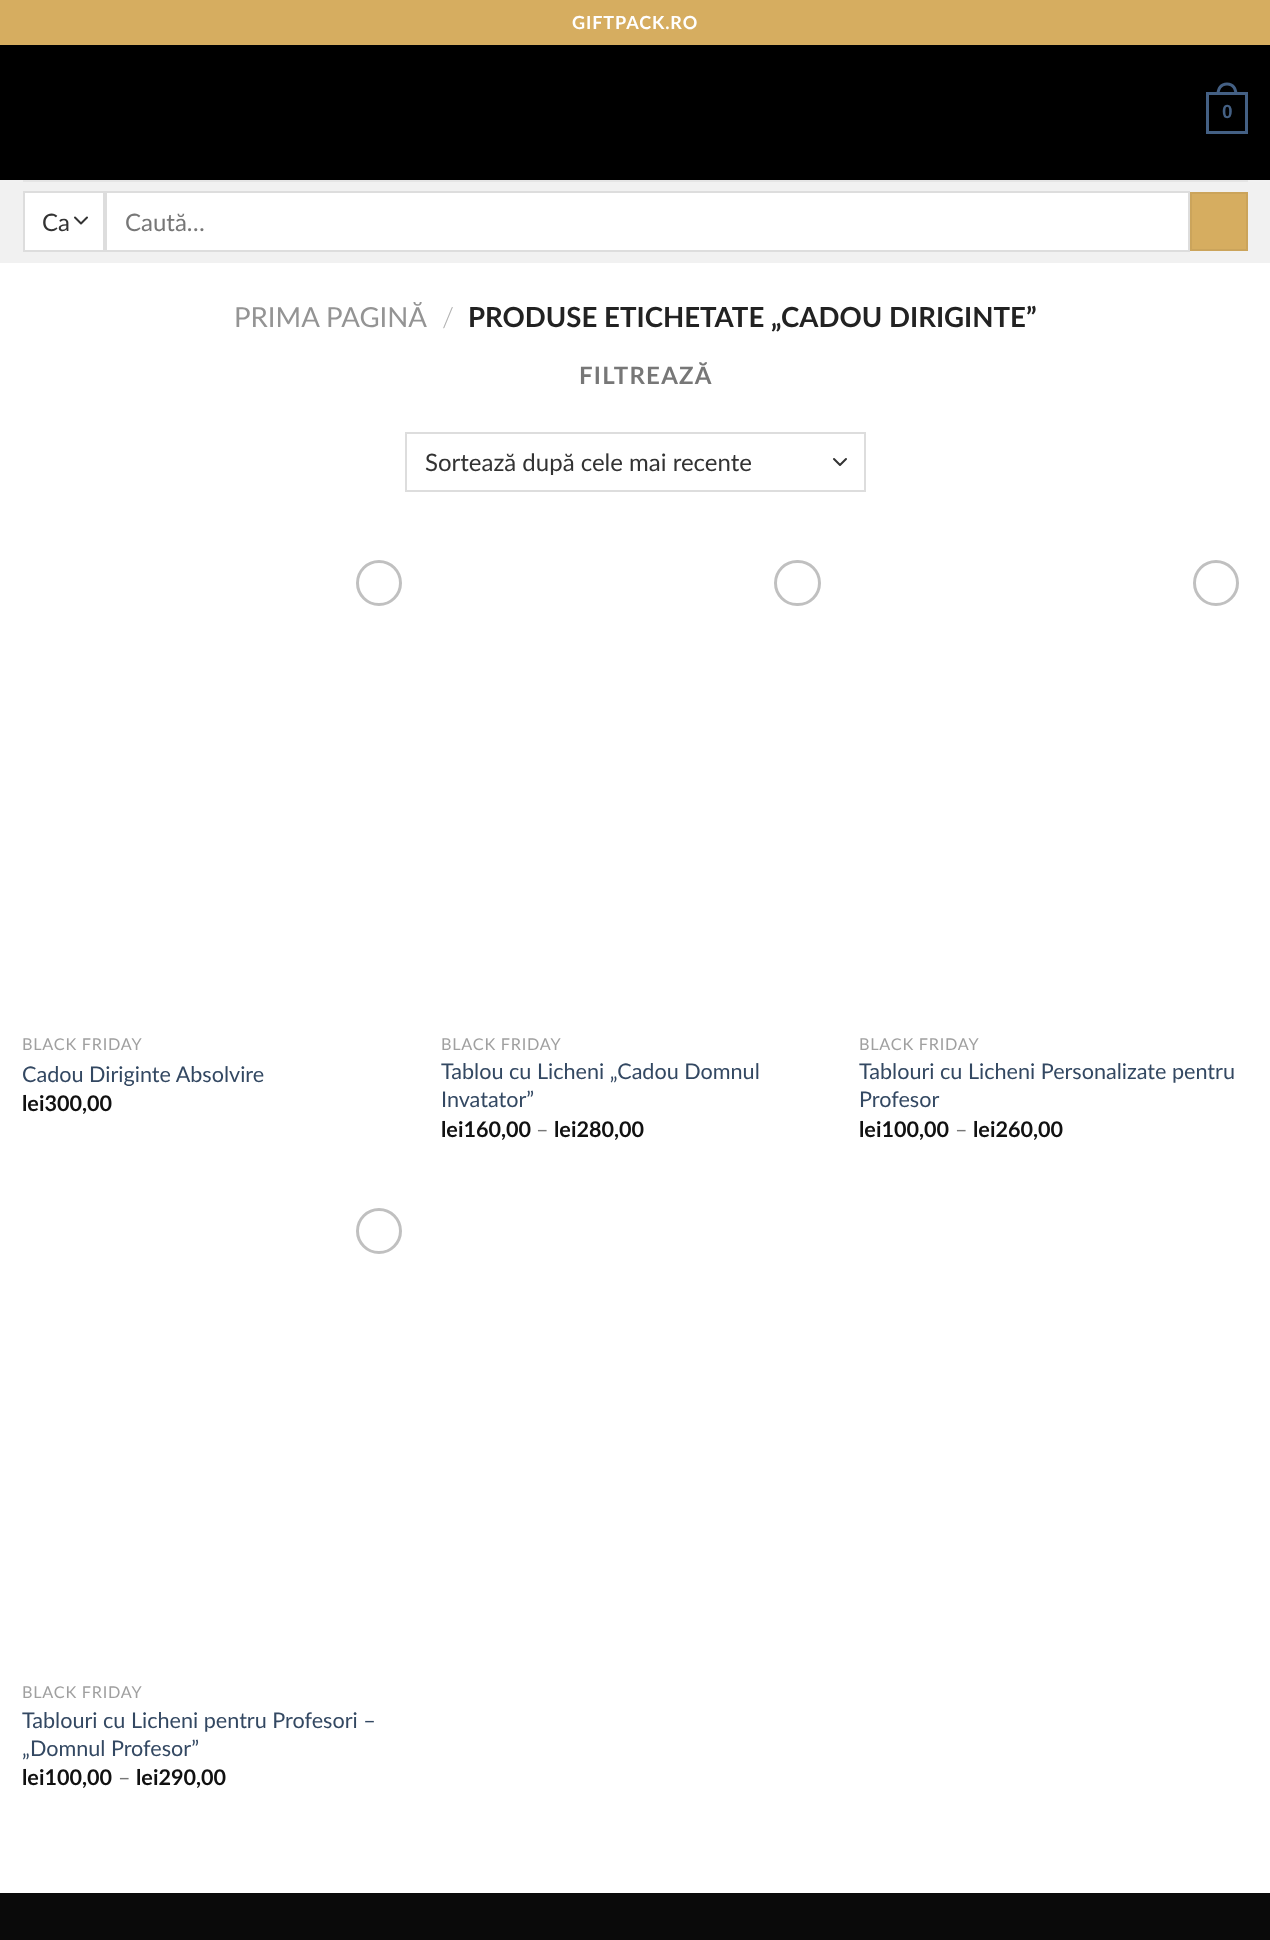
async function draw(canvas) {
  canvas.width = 1270;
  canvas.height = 1940;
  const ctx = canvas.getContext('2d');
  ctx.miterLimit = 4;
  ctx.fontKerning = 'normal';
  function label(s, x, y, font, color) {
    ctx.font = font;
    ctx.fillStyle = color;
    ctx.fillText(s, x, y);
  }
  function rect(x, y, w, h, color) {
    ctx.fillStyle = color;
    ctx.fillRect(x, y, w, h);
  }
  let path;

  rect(0, 0, 1270, 1940, '#fff');
  rect(0, 0, 1270, 45, '#d6ad60');
  ctx.letterSpacing = '0.9px';
  label('GIFTPACK.RO', 572, 29, 'bold 18px Lato', '#fff');
  rect(0, 45, 1270, 135, '#000');
  ctx.strokeStyle = '#446084';
  ctx.lineWidth = 3;
  ctx.strokeRect(1207.5, 93.5, 39, 39);
  ctx.fillStyle = '#446084';
  path = new Path2D('M1227 82.5C1234 82.5 1237.5 88 1237.5 94.5H1216.5C1216.5 88 1220 82.5 1227 82.5ZM1227 85.5C1232.5 85.5 1234.5 90 1234.5 94.5H1219.5C1219.5 90 1221.5 85.5 1227 85.5Z');
  ctx.fill(path, 'evenodd');
  ctx.letterSpacing = '0px';
  label('0', 1222, 118, 'bold 19px Liberation Sans', '#446084');
  rect(0, 180, 1270, 83, '#f1f1f1');
  rect(23, 180, 1225, 2, '#e5e5e5');
  rect(25, 193, 78, 57, '#fff');
  path = new Path2D('M75 217.5L81 223.5L87 217.5');
  ctx.strokeStyle = '#333';
  ctx.lineWidth = 2;
  ctx.lineCap = 'round';
  ctx.lineJoin = 'round';
  ctx.stroke(path);
  ctx.strokeStyle = '#ddd';
  ctx.lineJoin = 'miter';
  ctx.strokeRect(24, 192, 80, 59);
  label('Ca', 42, 231, '24px Lato', '#333');
  ctx.fillStyle = '#fff';
  ctx.beginPath();
  ctx.rect(106, 192, 1083, 59);
  ctx.fill();
  ctx.stroke();
  label('Caută…', 125, 231, '24px Lato', '#777');
  ctx.fillStyle = '#d6ad60';
  ctx.beginPath();
  ctx.rect(1191, 193, 56, 57);
  ctx.fill();
  ctx.strokeStyle = '#cba45b';
  ctx.stroke();
  label('PRIMA PAGINĂ', 234, 327, '27.6px Lato', '#949494');
  label('/', 442, 327, '300 27.6px Lato', '#b2b2b2');
  label('PRODUSE ETICHETATE „CADOU DIRIGINTE”', 468, 327, 'bold 27.6px Lato', '#222');
  ctx.letterSpacing = '1.25px';
  label('FILTREAZĂ', 579, 384, 'bold 24px Lato', '#777');
  path = new Path2D('M834 459L840 465L846 459');
  ctx.strokeStyle = '#333';
  ctx.lineJoin = 'round';
  ctx.stroke(path);
  ctx.strokeStyle = '#ddd';
  ctx.lineJoin = 'miter';
  ctx.strokeRect(406, 433, 459, 58);
  ctx.letterSpacing = '0px';
  label('Sortează după cele mai recente', 425, 471, '24px Lato', '#333');
  ctx.beginPath();
  ctx.arc(379, 583, 21.5, 0, 2 * Math.PI);
  ctx.strokeStyle = '#c0c0c0';
  ctx.lineWidth = 3;
  ctx.stroke();
  ctx.letterSpacing = '0.75px';
  label('BLACK FRIDAY', 22, 1050, '16.25px Lato', '#a0a0a0');
  ctx.letterSpacing = '0px';
  label('Cadou Diriginte Absolvire', 22, 1082, '21.6px Lato', '#334862');
  label('lei300,00', 22, 1111, 'bold 21.6px Lato', '#111');
  ctx.beginPath();
  ctx.roundRect(775.5, 561.5, 44, 43, 21.5);
  ctx.stroke();
  ctx.letterSpacing = '0.75px';
  label('BLACK FRIDAY', 441, 1050, '16.25px Lato', '#a0a0a0');
  ctx.letterSpacing = '0px';
  label('Tablou cu Licheni „Cadou Domnul', 441, 1079, '21.6px Lato', '#334862');
  label('Invatator”', 441, 1107, '21.6px Lato', '#334862');
  label('lei160,00', 441, 1137, 'bold 21.6px Lato', '#111');
  label('–', 536, 1137, '21.6px Lato', '#777');
  label('lei280,00', 554, 1137, 'bold 21.6px Lato', '#111');
  ctx.beginPath();
  ctx.arc(1216, 583, 21.5, 0, 2 * Math.PI);
  ctx.stroke();
  ctx.letterSpacing = '0.75px';
  label('BLACK FRIDAY', 859, 1050, '16.25px Lato', '#a0a0a0');
  ctx.letterSpacing = '0px';
  label('Tablouri cu Licheni Personalizate pentru', 859, 1079, '21.6px Lato', '#334862');
  label('Profesor', 859, 1107, '21.6px Lato', '#334862');
  label('lei100,00', 859, 1137, 'bold 21.6px Lato', '#111');
  label('–', 955, 1137, '21.6px Lato', '#777');
  label('lei260,00', 973, 1137, 'bold 21.6px Lato', '#111');
  ctx.beginPath();
  ctx.arc(379, 1231, 21.5, 0, 2 * Math.PI);
  ctx.stroke();
  ctx.letterSpacing = '0.75px';
  label('BLACK FRIDAY', 22, 1698, '16.25px Lato', '#a0a0a0');
  ctx.letterSpacing = '0px';
  label('Tablouri cu Licheni pentru Profesori –', 22, 1728, '21.6px Lato', '#334862');
  label('„Domnul Profesor”', 22, 1756, '21.6px Lato', '#334862');
  label('lei100,00', 22, 1785, 'bold 21.6px Lato', '#111');
  label('–', 118, 1785, '21.6px Lato', '#777');
  label('lei290,00', 136, 1785, 'bold 21.6px Lato', '#111');
  rect(0, 1893, 1270, 47, '#0a0a0a');
}

draw(document.querySelector('canvas'));
